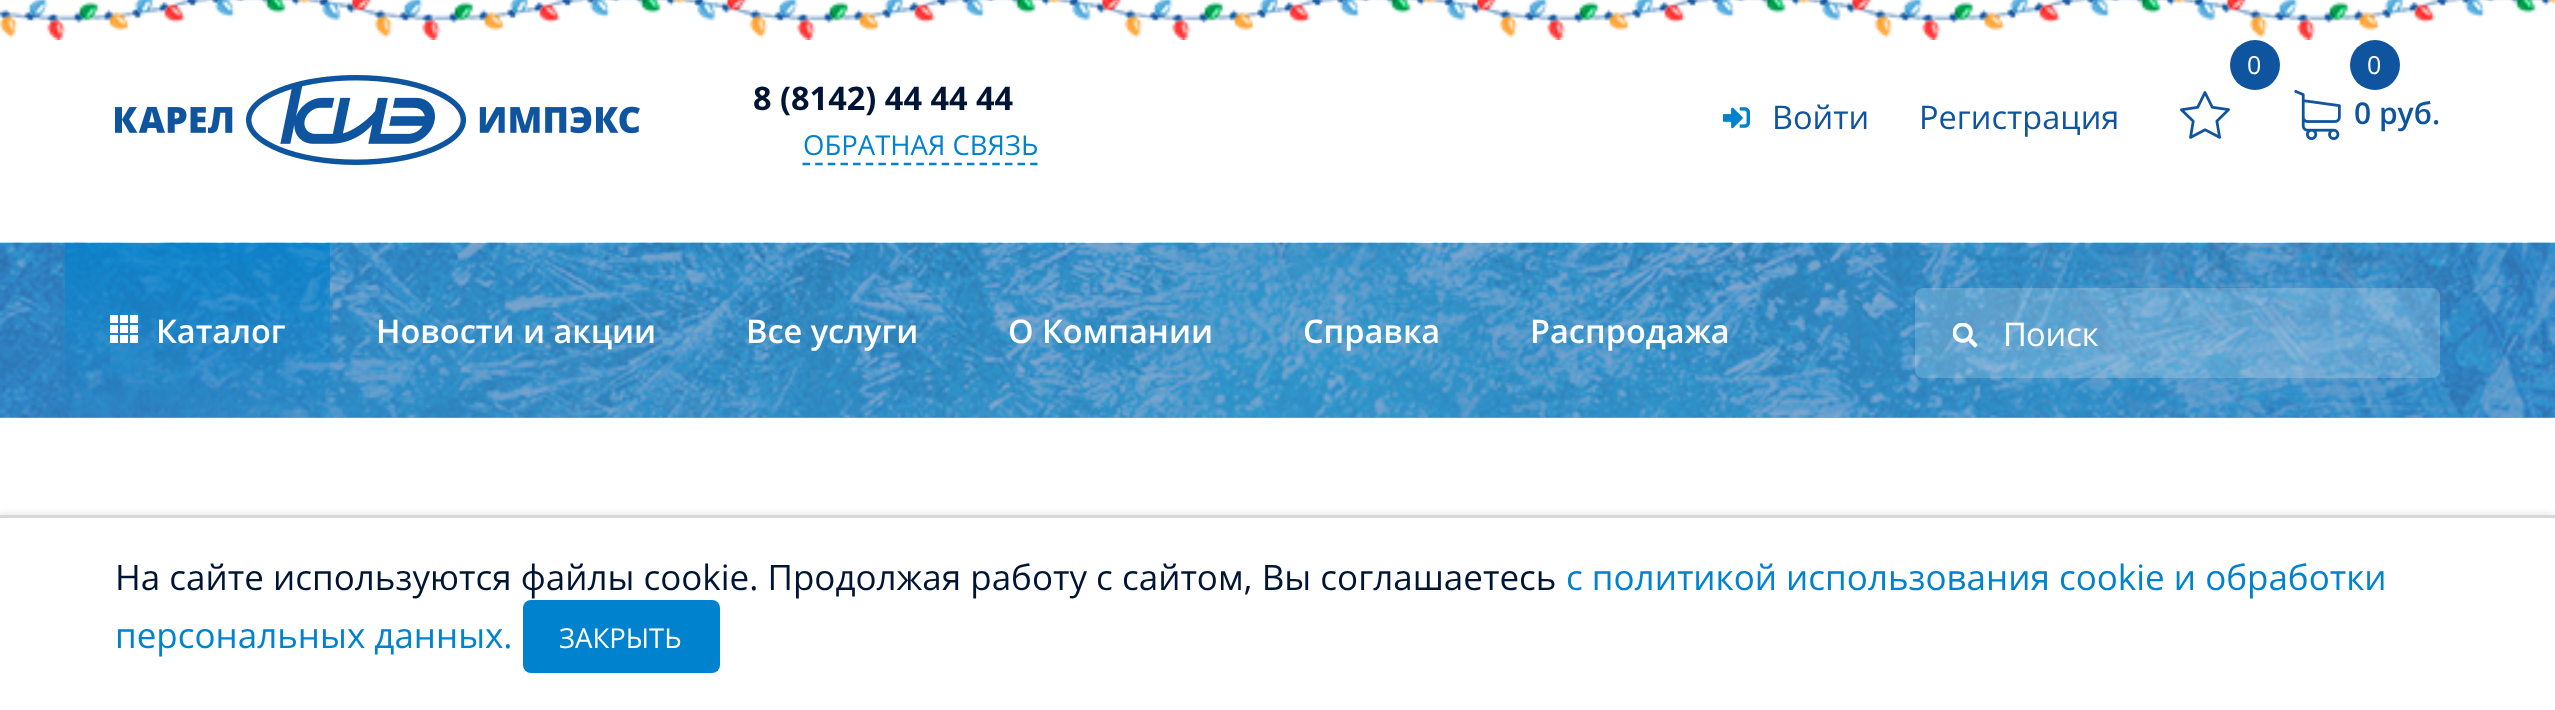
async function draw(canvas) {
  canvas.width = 2555;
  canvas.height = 710;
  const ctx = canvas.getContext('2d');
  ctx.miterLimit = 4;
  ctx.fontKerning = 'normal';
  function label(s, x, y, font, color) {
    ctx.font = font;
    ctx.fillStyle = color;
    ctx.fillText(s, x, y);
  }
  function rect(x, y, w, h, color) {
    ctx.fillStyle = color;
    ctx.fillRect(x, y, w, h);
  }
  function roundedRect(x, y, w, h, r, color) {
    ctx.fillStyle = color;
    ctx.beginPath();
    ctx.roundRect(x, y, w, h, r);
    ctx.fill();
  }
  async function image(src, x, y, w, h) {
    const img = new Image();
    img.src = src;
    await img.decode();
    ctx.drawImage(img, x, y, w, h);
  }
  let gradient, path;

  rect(0, 0, 2555, 710, '#fff');
  rect(0, 243, 2555, 175, '#87aacf');
  await image('assets/img1.png', 0, 0, 2555, 40);
  await image('assets/img2.png', 115, 75, 525, 90);
  label('8 (8142) 44 44 44', 753, 110, 'bold 32.5px Open Sans', '#001534');
  label('ОБРАТНАЯ СВЯЗЬ', 803, 155, '27.5px Open Sans', '#0082ce');
  path = new Path2D('M802.5 164H1037.5');
  ctx.strokeStyle = '#0082ce';
  ctx.lineWidth = 2.5;
  ctx.setLineDash([7.5, 5.15]);
  ctx.stroke(path);
  await image('assets/img3.png', 1723, 107, 27, 22);
  label('Войти', 1772, 129, '32.5px Open Sans', '#0f549e');
  label('Регистрация', 1919, 129, '32.5px Open Sans', '#0f549e');
  ctx.beginPath();
  ctx.arc(2255, 65, 25, 0, 2 * Math.PI);
  ctx.fill();
  label('0', 2247, 74, '25px Open Sans', '#fff');
  await image('assets/img4.png', 2180, 91, 50, 48);
  ctx.fillStyle = '#0f549e';
  ctx.beginPath();
  ctx.arc(2375, 65, 25, 0, 2 * Math.PI);
  ctx.fill();
  label('0', 2367, 74, '25px Open Sans', '#fff');
  await image('assets/img5.png', 2294, 90, 47, 50);
  label('0 руб.', 2354, 124, '600 30px Open Sans', '#0f549e');
  await image('assets/img6.png', 0, 242, 2555, 176);
  gradient = ctx.createLinearGradient(65, 243, 65, 418);
  gradient.addColorStop(0, '#0082ceb3');
  gradient.addColorStop(1, '#0082ce00');
  ctx.fillStyle = gradient;
  ctx.fillRect(65, 243, 265, 167);
  rect(120, 315, 8, 8, '#fff');
  rect(110, 315, 8, 8, '#fff');
  rect(130, 315, 8, 8, '#fff');
  rect(120, 325, 8, 8, '#fff');
  rect(110, 325, 8, 8, '#fff');
  rect(130, 325, 8, 8, '#fff');
  rect(120, 335, 8, 8, '#fff');
  rect(110, 335, 8, 8, '#fff');
  rect(130, 335, 8, 8, '#fff');
  label('Каталог', 156, 343, '600 32.5px Open Sans', '#fff');
  label('Новости и акции', 376, 343, '600 32.5px Open Sans', '#fff');
  label('Все услуги', 746, 343, '600 32.5px Open Sans', '#fff');
  label('О Компании', 1008, 343, '600 32.5px Open Sans', '#fff');
  label('Справка', 1303, 343, '600 32.5px Open Sans', '#fff');
  label('Распродажа', 1530, 343, '600 32.5px Open Sans', '#fff');
  await image('assets/img7.png', 1953, 323, 25, 25);
  label('П', 2003, 346, '32.5px Noto Sans', '#fff');
  label('оиск', 2026, 346, '32.5px Open Sans', '#fff');
  roundedRect(1915, 288, 525, 90, 8, '#ffffff33');
  ctx.fillStyle = '#ddd';
  ctx.filter = 'blur(4px)';
  ctx.beginPath();
  ctx.rect(0, 515, 2555, 195);
  ctx.fill();
  ctx.filter = 'none';
  rect(0, 518, 2555, 192, '#fff');
  rect(0, 515, 2555, 3, '#d7d7d7');
  label('На сайте используются файлы cookie. Продолжая работу с сайтом, Вы соглашаетесь', 115, 590, '35px Open Sans', '#001534');
  label('с политикой использования cookie и обработки', 1566, 590, '35px Open Sans', '#0082ce');
  label('персональных данных.', 115, 648, '35px Open Sans', '#0082ce');
  roundedRect(523, 600, 197, 73, 8, '#0082ce');
  label('ЗАКРЫТЬ', 559, 648, '27.5px Open Sans', '#fff');
}

draw(document.querySelector('canvas'));
